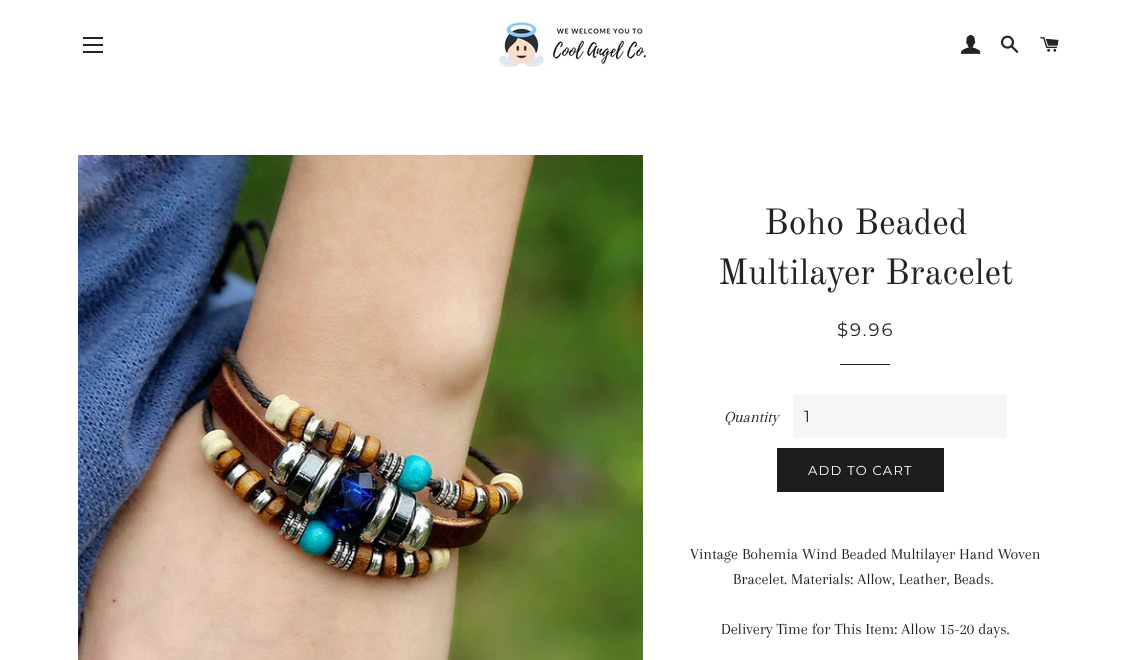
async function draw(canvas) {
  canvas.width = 1146;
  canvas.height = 660;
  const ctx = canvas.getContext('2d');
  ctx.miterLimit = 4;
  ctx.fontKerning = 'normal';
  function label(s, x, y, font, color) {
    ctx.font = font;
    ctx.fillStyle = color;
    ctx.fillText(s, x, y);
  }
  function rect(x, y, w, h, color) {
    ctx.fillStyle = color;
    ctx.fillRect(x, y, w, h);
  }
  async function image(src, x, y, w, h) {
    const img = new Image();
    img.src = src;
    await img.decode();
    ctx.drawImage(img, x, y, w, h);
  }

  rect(0, 0, 1146, 660, '#fff');
  rect(83, 37, 20, 2, '#222323');
  rect(83, 44, 20, 2, '#222323');
  rect(83, 51, 20, 2, '#222323');
  await image('assets/img1.png', 499, 19, 148, 48);
  await image('assets/img2.png', 961, 34, 20, 20);
  await image('assets/img3.png', 1001, 35, 18, 18);
  await image('assets/img4.png', 1040, 37, 19, 15);
  await image('assets/img5.png', 78, 155, 565, 505);
  label('Boho Beaded', 764, 234, '36px Old Standard TT', '#222323');
  label('Multilayer Bracelet', 718, 284, '36px Old Standard TT', '#222323');
  ctx.letterSpacing = '2px';
  label('$9.96', 837, 336, '100 18px Montserrat', '#222323');
  rect(840, 364, 50, 1, '#1c1d1d');
  ctx.letterSpacing = '0px';
  label('Quantity', 724, 422, 'italic 16px Arapey', '#222323');
  rect(793, 395, 214, 43, '#f6f6f6');
  ctx.letterSpacing = '2px';
  label('1', 804, 422, '100 16px Montserrat', '#1c1d1d');
  rect(777, 448, 167, 44, '#1c1d1d');
  ctx.letterSpacing = '1.25px';
  label('ADD TO CART', 808, 475, '100 13px Montserrat', '#fff');
  ctx.letterSpacing = '0px';
  label('Vintage Bohemia Wind Beaded Multilayer Hand Woven', 690, 559, '16px Arapey', '#222323');
  label('Bracelet. Materials: Allow, Leather, Beads.', 733, 584, '16px Arapey', '#222323');
  label('Delivery Time for This Item: Allow 15-20 days.', 721, 634, '16px Arapey', '#222323');
}

draw(document.querySelector('canvas'));
